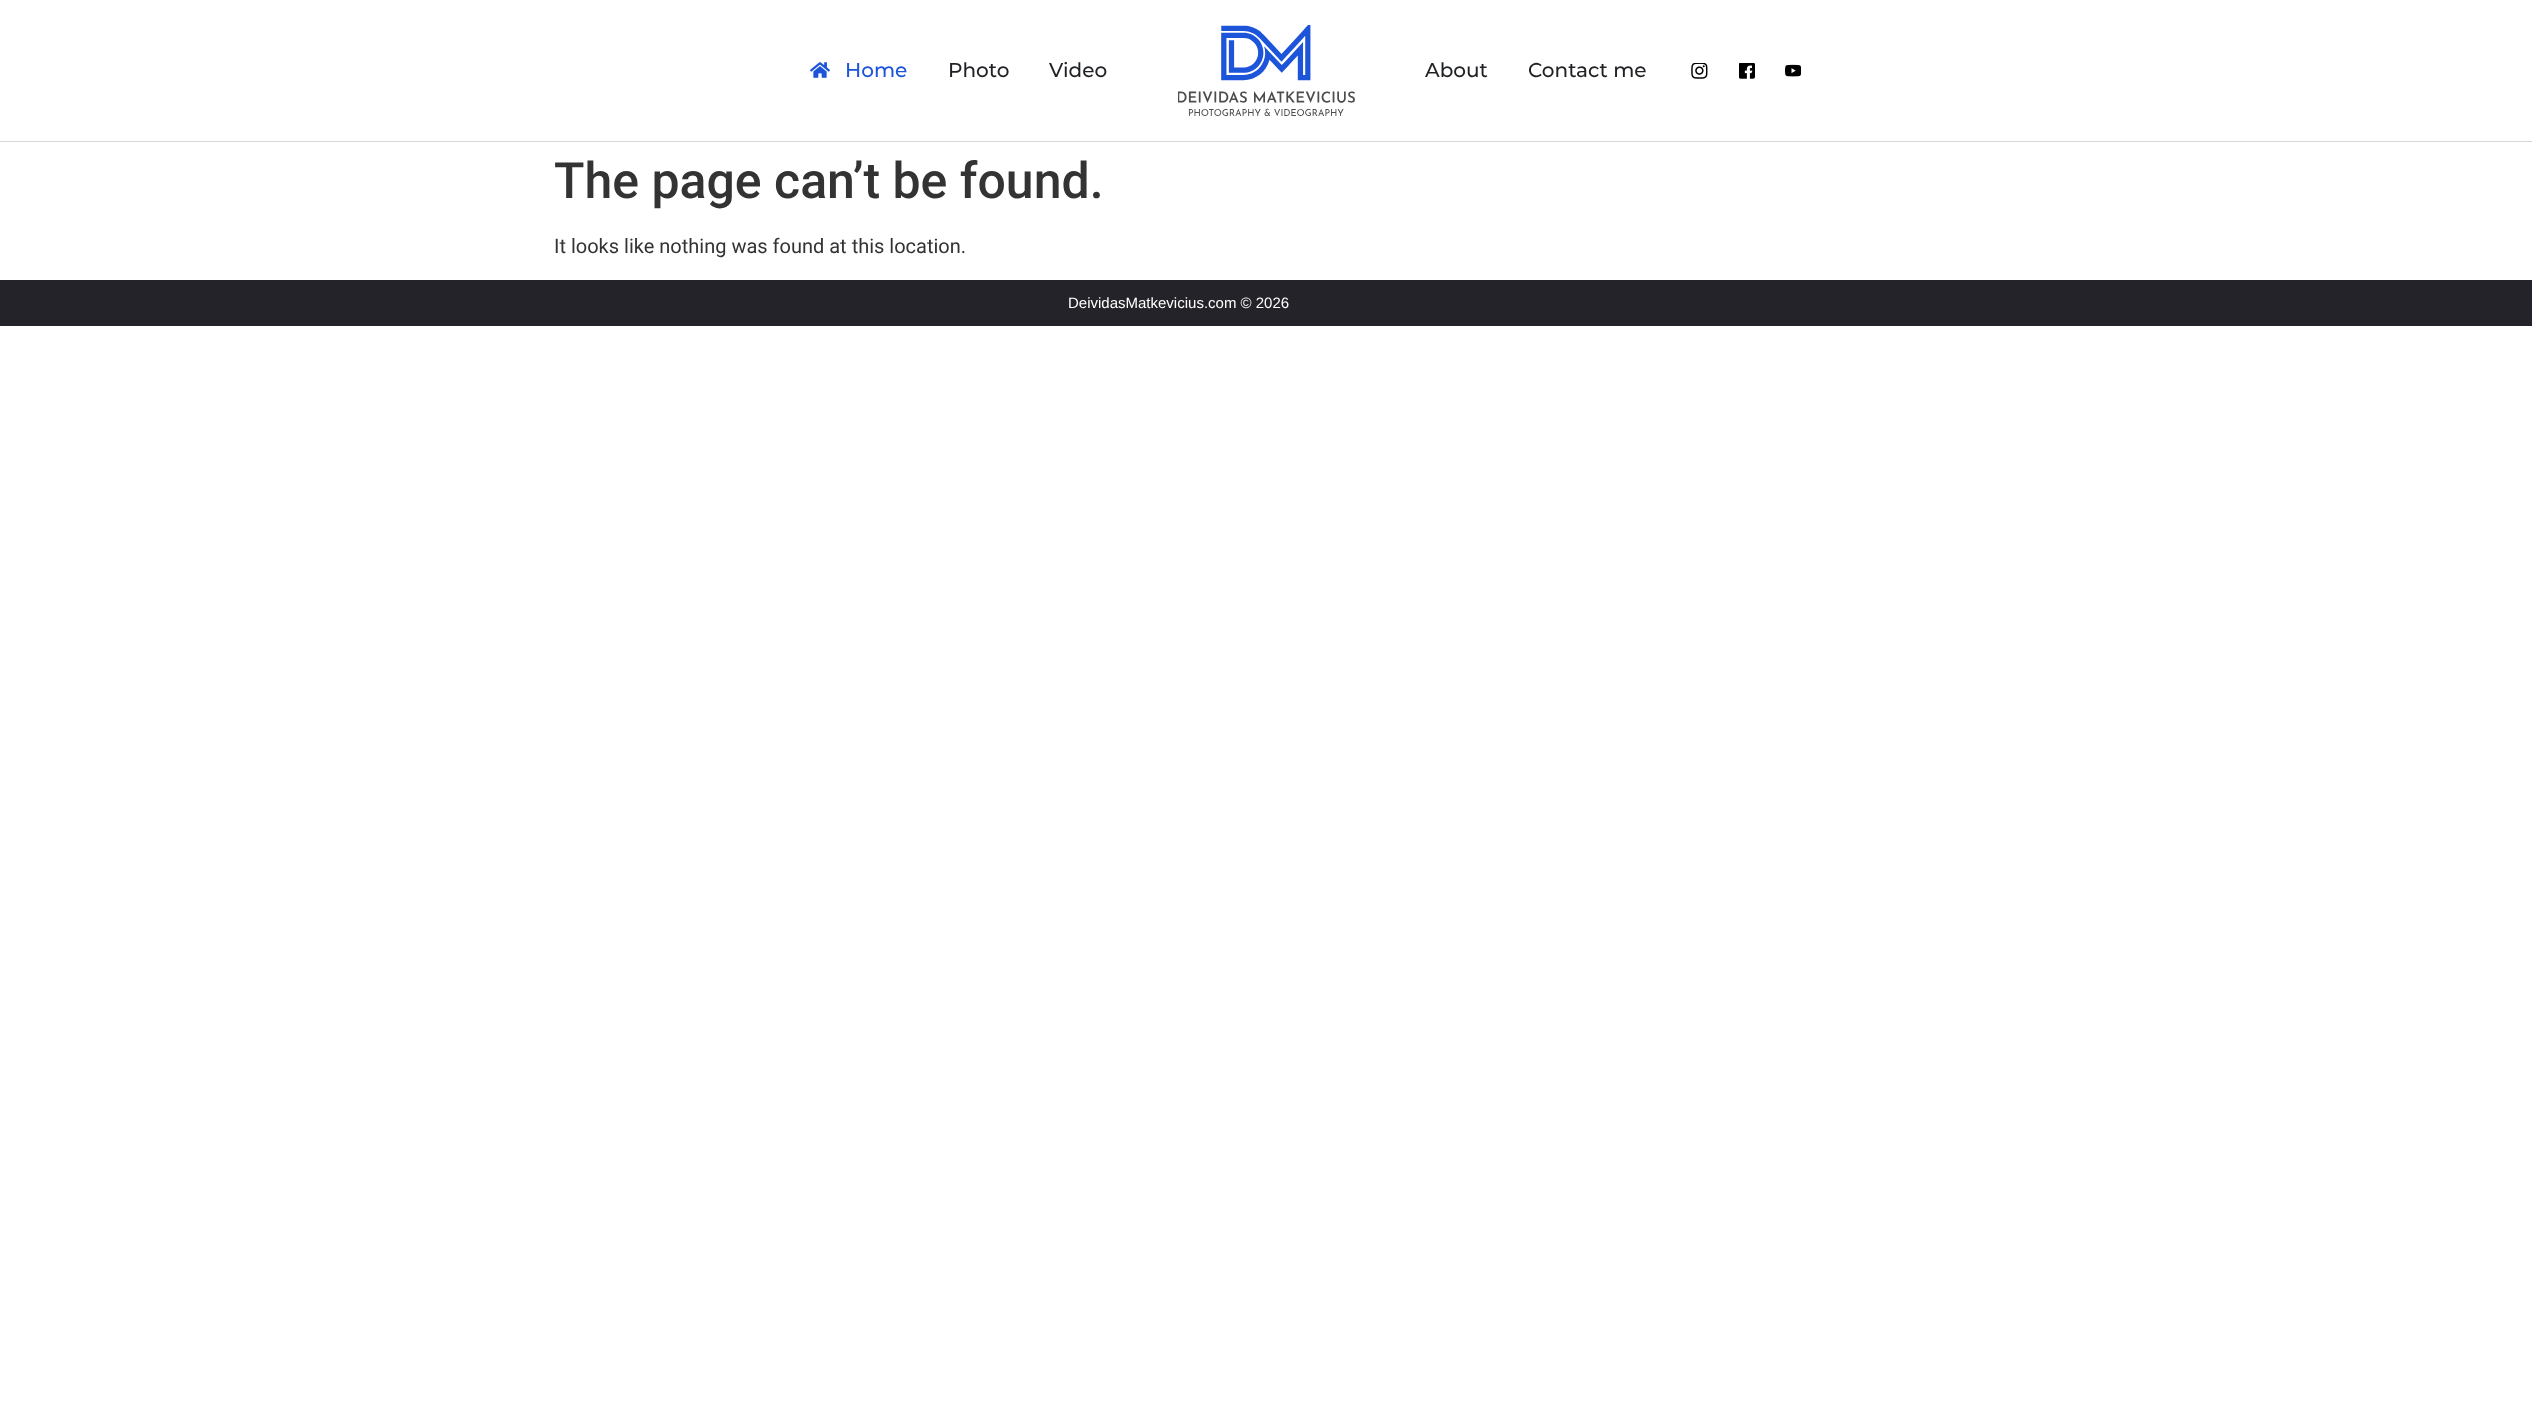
async function draw(canvas) {
  canvas.width = 2532;
  canvas.height = 1410;
  const ctx = canvas.getContext('2d');
  ctx.miterLimit = 4;
  ctx.fontKerning = 'normal';
  function label(s, x, y, font, color) {
    ctx.font = font;
    ctx.fillStyle = color;
    ctx.fillText(s, x, y);
  }
  function rect(x, y, w, h, color) {
    ctx.fillStyle = color;
    ctx.fillRect(x, y, w, h);
  }
  async function image(src, x, y, w, h) {
    const img = new Image();
    img.src = src;
    await img.decode();
    ctx.drawImage(img, x, y, w, h);
  }

  rect(0, 0, 2532, 1410, '#fff');
  rect(0, 141, 2532, 1, '#d6d6d6');
  await image('assets/img1.png', 810, 62, 20, 16);
  label('Home', 845, 77, '500 20px Montserrat', '#1c54da');
  label('Photo', 948, 77, '500 20px Montserrat', '#1f2124');
  label('Video', 1049, 77, '500 20px Montserrat', '#1f2124');
  await image('assets/img2.png', 1178, 25, 177, 91);
  label('About', 1425, 77, '500 20px Montserrat', '#1f2124');
  label('Contact me', 1528, 77, '500 20px Montserrat', '#1f2124');
  await image('assets/img3.png', 1691, 63, 17, 16);
  await image('assets/img4.png', 1739, 63, 16, 16);
  await image('assets/img5.png', 1785, 64, 16, 13);
  label('The page can’t be found.', 554, 198, '500 50px Roboto', '#333');
  label('It looks like nothing was found at this location.', 554, 253, '20px Roboto', '#333');
  rect(0, 280, 2532, 46, '#232329');
  label('DeividasMatkevicius.com © 2026', 1068, 308, '15px Liberation Sans', '#fff');
}

draw(document.querySelector('canvas'));
